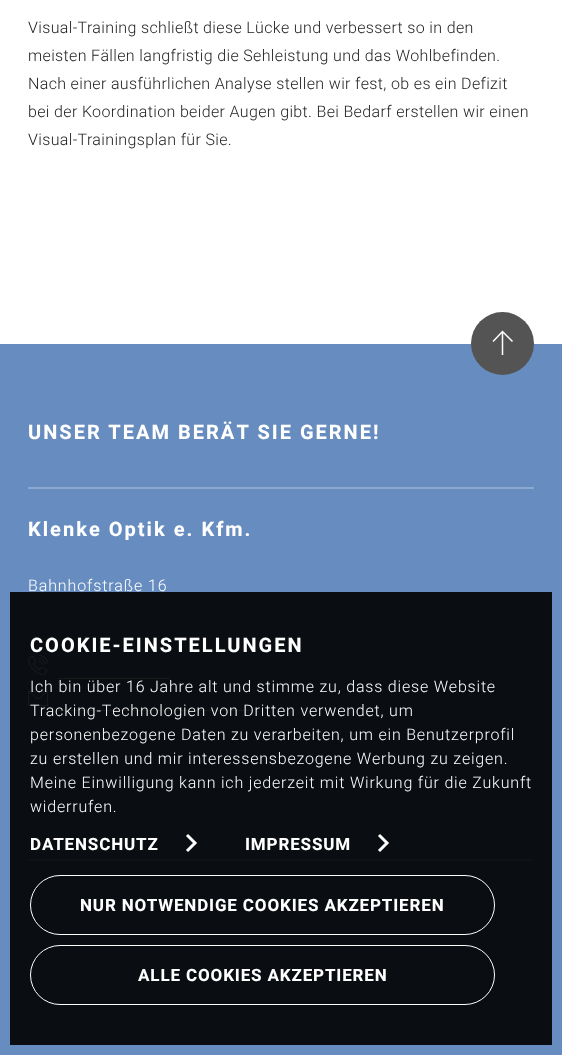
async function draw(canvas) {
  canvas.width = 562;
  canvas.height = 1055;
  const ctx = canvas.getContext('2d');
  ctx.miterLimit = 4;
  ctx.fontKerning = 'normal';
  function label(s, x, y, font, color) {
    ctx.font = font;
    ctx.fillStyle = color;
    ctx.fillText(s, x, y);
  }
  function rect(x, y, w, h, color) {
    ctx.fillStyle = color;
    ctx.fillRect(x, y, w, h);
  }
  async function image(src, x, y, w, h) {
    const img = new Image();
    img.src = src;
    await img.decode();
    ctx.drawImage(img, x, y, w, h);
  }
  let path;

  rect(0, 0, 562, 1055, '#fff');
  ctx.letterSpacing = '0.35px';
  label('Visual-Training schließt diese Lücke und verbessert so in den', 28, 33, '300 16px Heebo', '#222');
  label('meisten Fällen langfristig die Sehleistung und das Wohlbefinden.', 28, 61, '300 16px Heebo', '#222');
  label('Nach einer ausführlichen Analyse stellen wir fest, ob es ein Defizit', 28, 89, '300 16px Heebo', '#222');
  label('bei der Koordination beider Augen gibt. Bei Bedarf erstellen wir einen', 28, 117, '300 16px Heebo', '#222');
  label('Visual-Trainingsplan für Sie.', 28, 145, '300 16px Heebo', '#222');
  rect(0, 344, 562, 711, '#678cbf');
  ctx.fillStyle = '#545454';
  ctx.beginPath();
  ctx.arc(502.5, 343.5, 31.5, 0, 2 * Math.PI);
  ctx.fill();
  path = new Path2D('M493 341.5L502.5 331.5L512.5 341.5M502.5 331.5V355');
  ctx.strokeStyle = '#fff';
  ctx.lineWidth = 1.5;
  ctx.stroke(path);
  rect(10, 592, 542, 453, '#0a0e13');
  ctx.letterSpacing = '2px';
  label('UNSER TEAM BERÄT SIE GERNE!', 28, 439, 'bold 20px Heebo', '#fff');
  rect(28, 487, 506, 2, '#8da9cf');
  rect(28, 859, 506, 2, '#0e1115');
  label('Klenke Optik e. Kfm.', 28, 536, 'bold 20px Heebo', '#fff');
  ctx.letterSpacing = '0.9px';
  label('Bahnhofstraße 16', 28, 591, '300 16px Heebo', '#fff');
  await image('assets/img1.png', 28, 655, 20, 20);
  rect(58, 678, 112, 1, '#191919');
  ctx.strokeStyle = '#191919';
  ctx.lineWidth = 1;
  ctx.strokeRect(28.5, 691.5, 19, 14);
  path = new Path2D('M28.5 691.5L38 699L47.5 691.5');
  ctx.stroke(path);
  rect(58, 710, 193, 1, '#191919');
  ctx.letterSpacing = '2px';
  label('COOKIE-EINSTELLUNGEN', 30, 652, 'bold 20px Heebo', '#fff');
  ctx.letterSpacing = '0.8px';
  label('Ich bin über 16 Jahre alt und stimme zu, dass diese Website', 30, 692, '300 16px Heebo', '#fff');
  label('Tracking-Technologien von Dritten verwendet, um', 30, 716, '300 16px Heebo', '#fff');
  label('personenbezogene Daten zu verarbeiten, um ein Benutzerprofil', 30, 740, '300 16px Heebo', '#fff');
  label('zu erstellen und mir interessensbezogene Werbung zu zeigen.', 30, 764, '300 16px Heebo', '#fff');
  label('Meine Einwilligung kann ich jederzeit mit Wirkung für die Zukunft', 30, 788, '300 16px Heebo', '#fff');
  label('widerrufen.', 30, 812, '300 16px Heebo', '#fff');
  ctx.letterSpacing = '0.85px';
  label('DATENSCHUTZ', 30, 850, 'bold 17px Heebo', '#fff');
  path = new Path2D('M187 851L195 843L187 835');
  ctx.strokeStyle = '#fff';
  ctx.lineWidth = 3;
  ctx.stroke(path);
  label('IMPRESSUM', 245, 850, 'bold 17px Heebo', '#fff');
  path = new Path2D('M379 851L387 843L379 835');
  ctx.stroke(path);
  ctx.beginPath();
  ctx.roundRect(30.5, 875.5, 464, 59, 29.5);
  ctx.lineWidth = 1;
  ctx.stroke();
  label('NUR NOTWENDIGE COOKIES AKZEPTIEREN', 80, 911, 'bold 17px Heebo', '#fff');
  ctx.beginPath();
  ctx.roundRect(30.5, 945.5, 464, 59, 29.5);
  ctx.stroke();
  label('ALLE COOKIES AKZEPTIEREN', 138, 981, 'bold 17px Heebo', '#fff');
}

draw(document.querySelector('canvas'));
